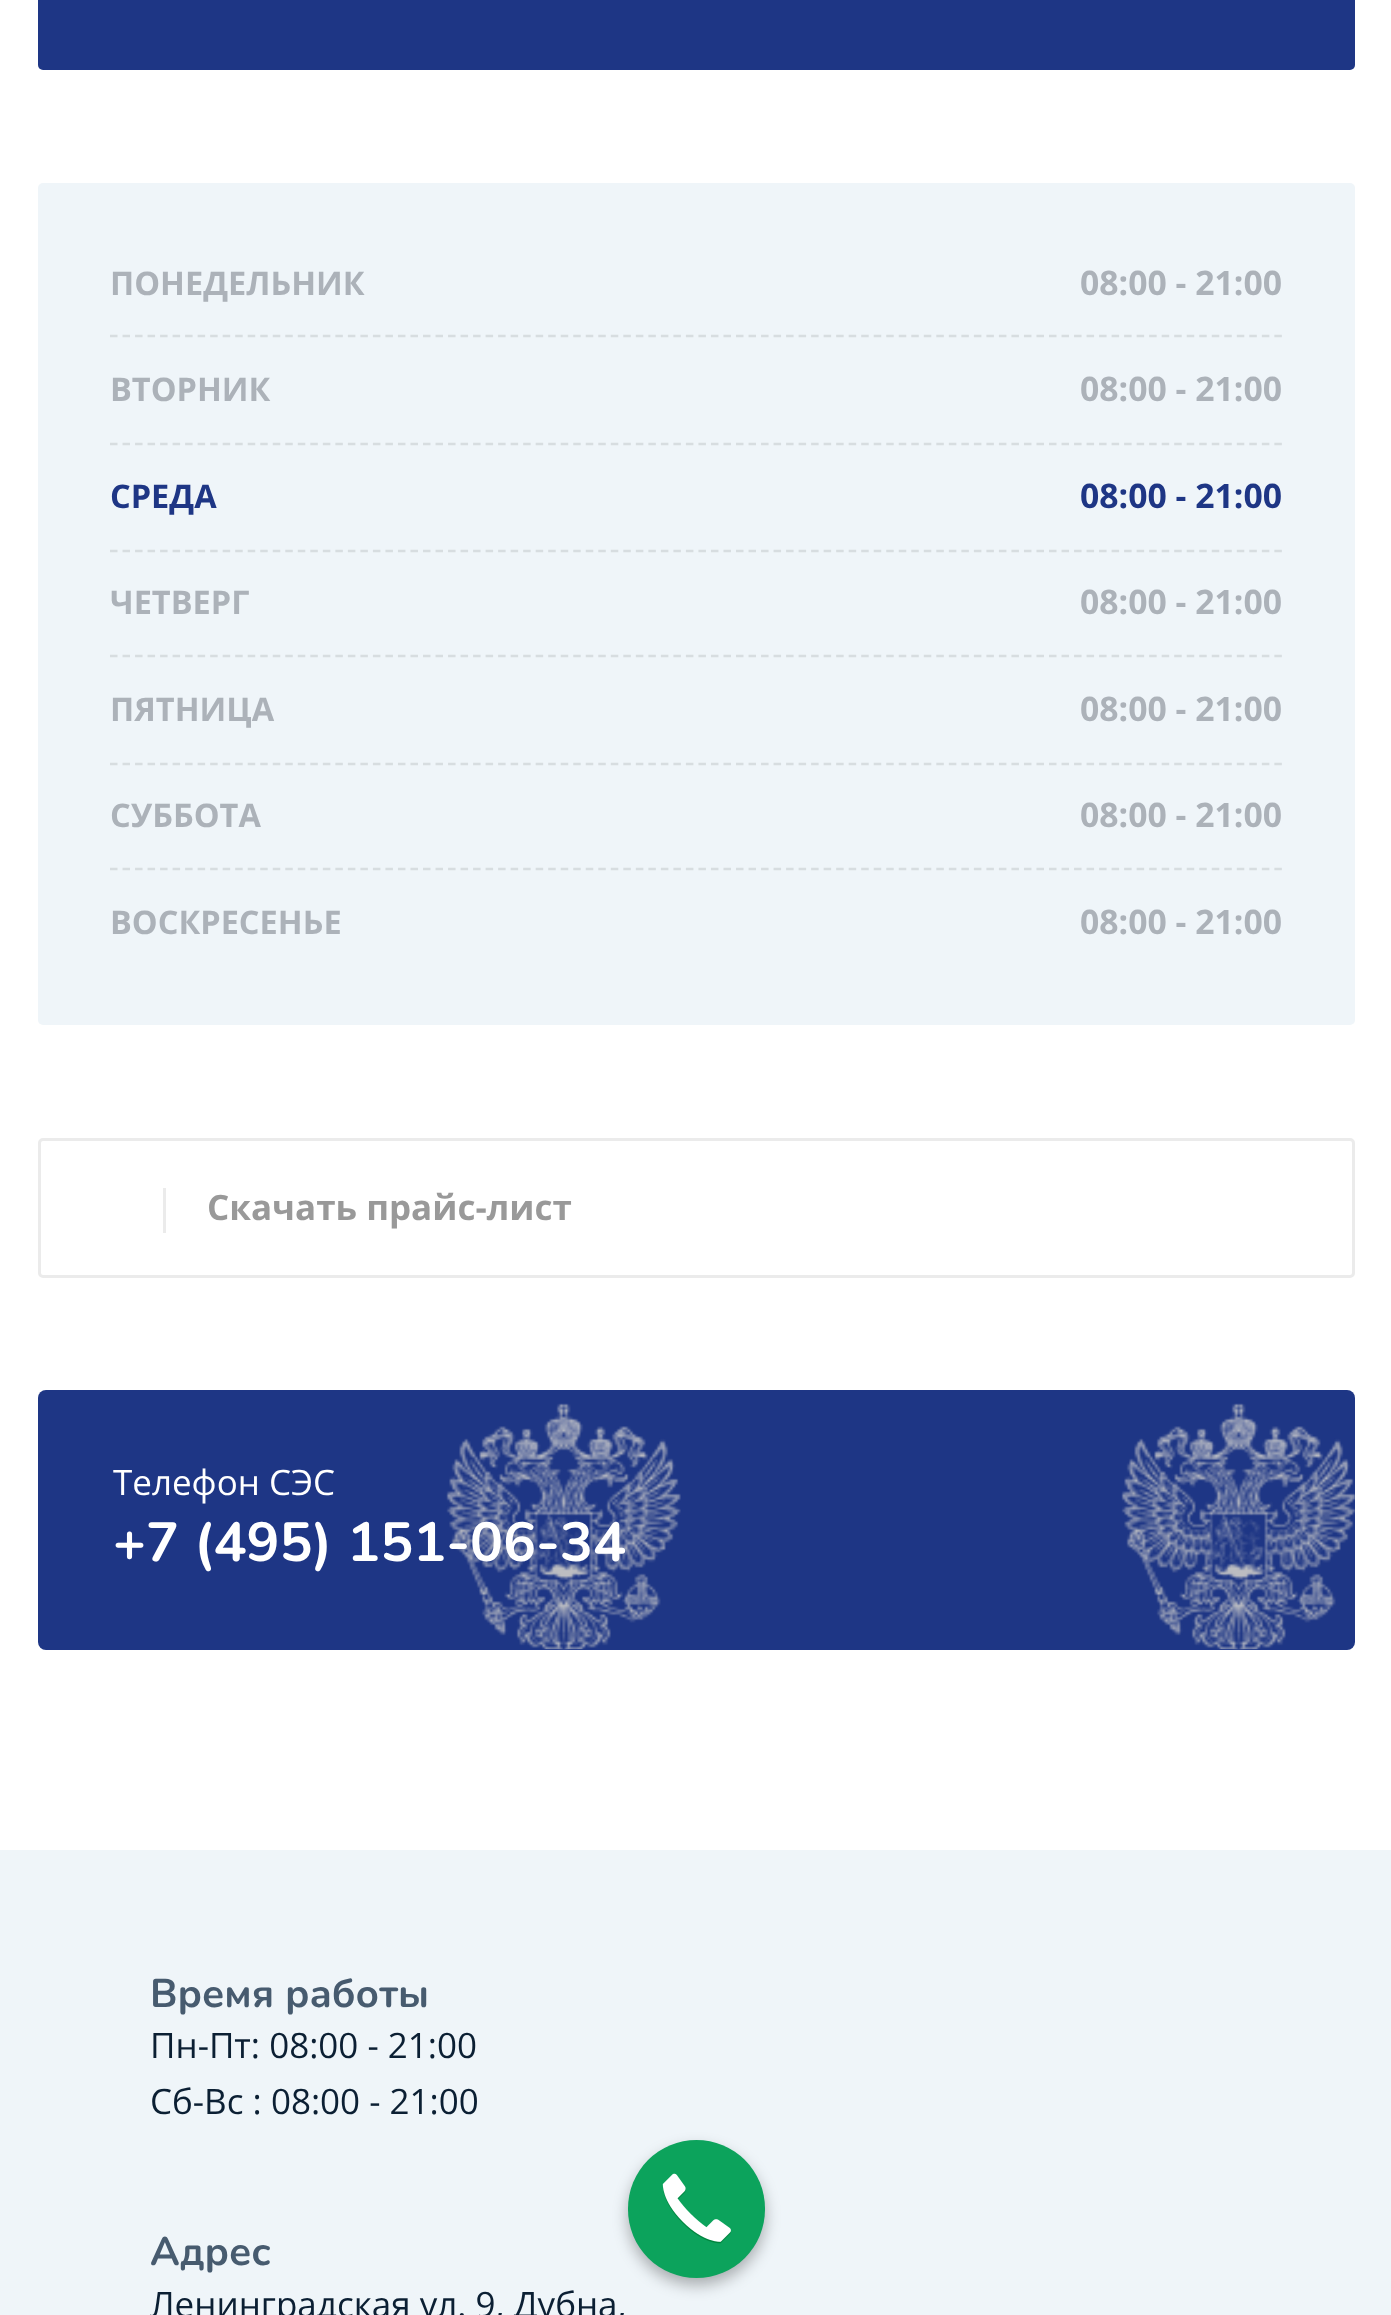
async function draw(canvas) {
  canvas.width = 1391;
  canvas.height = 2315;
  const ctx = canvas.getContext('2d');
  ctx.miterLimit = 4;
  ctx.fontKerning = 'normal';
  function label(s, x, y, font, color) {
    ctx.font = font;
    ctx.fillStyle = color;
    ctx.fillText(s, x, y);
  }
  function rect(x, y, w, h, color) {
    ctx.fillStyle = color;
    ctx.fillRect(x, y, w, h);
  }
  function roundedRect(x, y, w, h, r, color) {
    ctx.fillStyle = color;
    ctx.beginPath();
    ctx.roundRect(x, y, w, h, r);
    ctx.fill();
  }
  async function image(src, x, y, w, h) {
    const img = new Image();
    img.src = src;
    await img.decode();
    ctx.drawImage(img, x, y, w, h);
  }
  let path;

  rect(0, 0, 1391, 2315, '#fff');
  roundedRect(38, -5, 1317, 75, 5, '#1e3685');
  roundedRect(38, 183, 1317, 842, 5, '#eff5f9');
  path = new Path2D('M110 336H1282.5');
  ctx.strokeStyle = '#d7dde0';
  ctx.lineWidth = 2.5;
  ctx.setLineDash([7.5, 5.02]);
  ctx.stroke(path);
  label('ПОНЕДЕЛЬНИК', 110, 295, 'bold 32.5px Open Sans', '#acb2b9');
  label('08:00 - 21:00', 1080, 295, 'bold 33.75px Open Sans', '#acb2b9');
  path = new Path2D('M110 444H1282.5');
  ctx.stroke(path);
  label('ВТОРНИК', 110, 401, 'bold 32.5px Open Sans', '#acb2b9');
  label('08:00 - 21:00', 1080, 401, 'bold 33.75px Open Sans', '#acb2b9');
  path = new Path2D('M110 551H1282.5');
  ctx.stroke(path);
  label('СРЕДА', 110, 508, 'bold 32.5px Open Sans', '#1e3685');
  label('08:00 - 21:00', 1080, 508, 'bold 33.75px Open Sans', '#1e3685');
  path = new Path2D('M110 656H1282.5');
  ctx.stroke(path);
  label('ЧЕТВЕРГ', 110, 614, 'bold 32.5px Open Sans', '#acb2b9');
  label('08:00 - 21:00', 1080, 614, 'bold 33.75px Open Sans', '#acb2b9');
  path = new Path2D('M110 764H1282.5');
  ctx.stroke(path);
  label('ПЯТНИЦА', 110, 721, 'bold 32.5px Open Sans', '#acb2b9');
  label('08:00 - 21:00', 1080, 721, 'bold 33.75px Open Sans', '#acb2b9');
  path = new Path2D('M110 869H1282.5');
  ctx.stroke(path);
  label('СУББОТА', 110, 827, 'bold 32.5px Open Sans', '#acb2b9');
  label('08:00 - 21:00', 1080, 827, 'bold 33.75px Open Sans', '#acb2b9');
  label('ВОСКРЕСЕНЬЕ', 110, 934, 'bold 32.5px Open Sans', '#acb2b9');
  label('08:00 - 21:00', 1080, 934, 'bold 33.75px Open Sans', '#acb2b9');
  ctx.beginPath();
  ctx.roundRect(39.5, 1139.5, 1314, 137, 3.5);
  ctx.strokeStyle = '#ebebeb';
  ctx.lineWidth = 3;
  ctx.setLineDash([]);
  ctx.stroke();
  rect(163, 1188, 3, 45, '#ebebeb');
  label('Скачать прайс-лист', 207, 1220, 'bold 35px Open Sans', '#999');
  roundedRect(38, 1390, 1317, 260, 8, '#1e3685');
  await image('assets/img1.png', 446, 1403, 909, 247);
  label('Телефон СЭС', 113, 1495, '35px Open Sans', '#fff');
  label('+7 (495) 151-06-34', 113, 1561, 'bold 55px Nunito', '#fff');
  rect(0, 1850, 1391, 465, '#eff5f9');
  label('Время работы', 150, 2007, 'bold 40px Nunito', '#475b6f');
  label('Пн-Пт: 08:00 - 21:00', 150, 2058, '35px Open Sans', '#0b1f33');
  label('Сб-Вс : 08:00 - 21:00', 150, 2114, '35px Open Sans', '#0b1f33');
  label('Адрес', 150, 2265, 'bold 40px Nunito', '#475b6f');
  label('Ленинградская ул. 9, Дубна,', 150, 2317, '35px Open Sans', '#0b1f33');
  ctx.fillStyle = '#0000004d';
  ctx.filter = 'blur(7.5px)';
  ctx.beginPath();
  ctx.roundRect(628, 2148, 137, 137, 68.5);
  ctx.fill();
  ctx.filter = 'none';
  roundedRect(628, 2140, 137, 138, 68.5, '#0ca35c');
  await image('assets/img2.png', 662, 2173, 69, 71);
}

draw(document.querySelector('canvas'));
